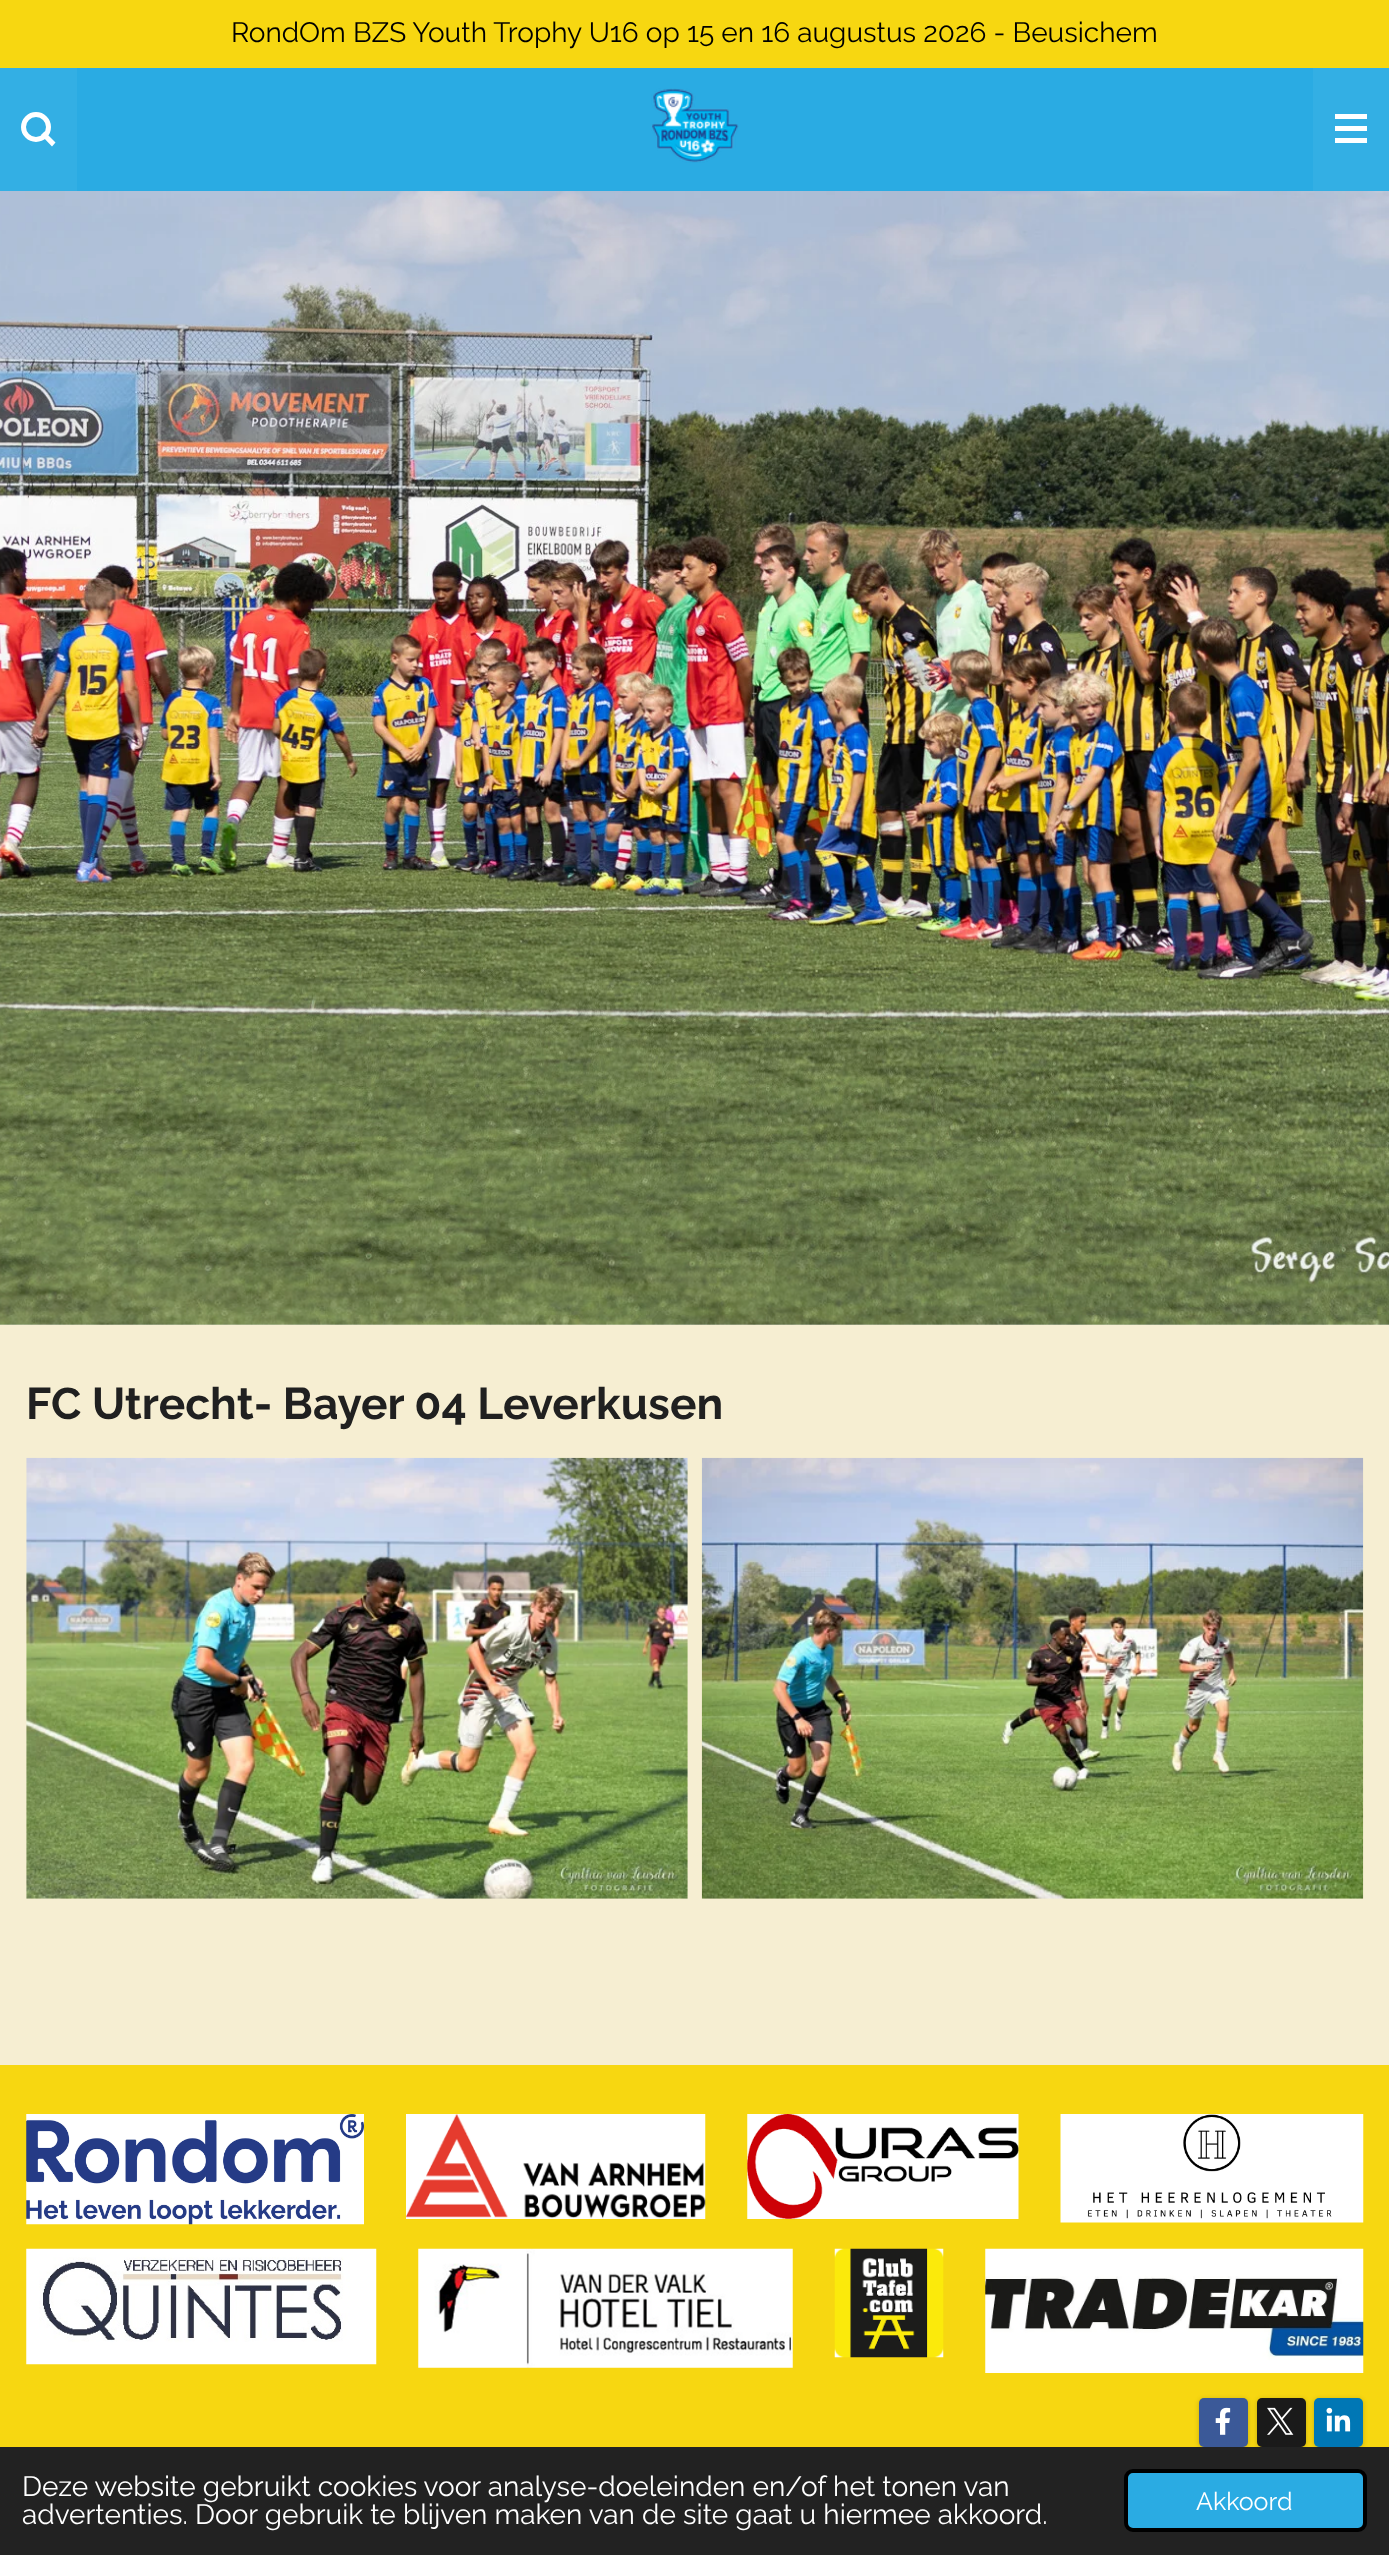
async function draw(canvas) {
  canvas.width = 1389;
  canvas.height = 2555;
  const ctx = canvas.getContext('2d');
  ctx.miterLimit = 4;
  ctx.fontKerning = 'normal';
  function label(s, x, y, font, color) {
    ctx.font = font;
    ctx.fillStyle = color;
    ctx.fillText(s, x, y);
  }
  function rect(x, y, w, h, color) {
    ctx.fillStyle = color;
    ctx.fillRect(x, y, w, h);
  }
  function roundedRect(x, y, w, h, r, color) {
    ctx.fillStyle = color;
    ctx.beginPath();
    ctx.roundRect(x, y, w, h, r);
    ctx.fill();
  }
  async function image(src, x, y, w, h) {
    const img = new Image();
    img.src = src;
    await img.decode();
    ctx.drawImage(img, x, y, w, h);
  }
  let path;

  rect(0, 0, 1389, 2555, '#fff');
  rect(0, 0, 1389, 68, '#f7d711');
  label('RondOm BZS Youth Trophy U16 op 15 en 16 augustus 2026 - Beusichem', 231, 42, '28px Raleway', '#000');
  rect(0, 68, 77, 123, '#33afe4');
  ctx.beginPath();
  ctx.arc(36, 127, 12.5, 0, 2 * Math.PI);
  ctx.strokeStyle = '#fff';
  ctx.lineWidth = 5;
  ctx.stroke();
  ctx.fillStyle = '#fff';
  path = new Path2D('M44.5 131.5L55.5 142.5L52 146.5L41 135Z');
  ctx.fill(path);
  rect(77, 68, 1236, 123, '#2aabe3');
  await image('assets/img1.png', 651, 88, 88, 75);
  rect(1313, 68, 76, 123, '#33afe4');
  rect(1335, 126, 32, 5, '#fff');
  rect(1335, 114, 32, 5, '#fff');
  rect(1335, 138, 32, 5, '#fff');
  await image('assets/img2.png', 0, 191, 1389, 1134);
  rect(0, 1325, 1389, 740, '#f6eed2');
  label('FC Utrecht- Bayer 04 Leverkusen', 26, 1419, 'bold 44.25px Raleway', '#202020');
  await image('assets/img3.png', 26, 1457, 662, 442);
  await image('assets/img4.png', 701, 1457, 663, 442);
  rect(0, 2065, 1389, 382, '#f7d711');
  await image('assets/img5.png', 26, 2114, 338, 111);
  await image('assets/img6.png', 406, 2114, 300, 105);
  await image('assets/img7.png', 747, 2114, 272, 105);
  await image('assets/img8.png', 1060, 2114, 304, 109);
  await image('assets/img9.png', 26, 2248, 351, 117);
  await image('assets/img10.png', 418, 2248, 375, 120);
  await image('assets/img11.png', 834, 2248, 110, 110);
  await image('assets/img12.png', 985, 2248, 379, 125);
  ctx.fillStyle = '#00000033';
  ctx.filter = 'blur(2.5px)';
  ctx.beginPath();
  ctx.roundRect(1199, 2399, 49, 49, 5);
  ctx.fill();
  ctx.filter = 'none';
  roundedRect(1199, 2398, 49, 49, 5, '#3b5998');
  await image('assets/img13.png', 1215, 2407, 16, 28);
  ctx.fillStyle = '#00000033';
  ctx.filter = 'blur(2.5px)';
  ctx.beginPath();
  ctx.roundRect(1257, 2399, 49, 49, 5);
  ctx.fill();
  ctx.filter = 'none';
  roundedRect(1257, 2398, 49, 49, 5, '#1a1a1a');
  await image('assets/img14.png', 1267, 2407, 27, 28);
  ctx.fillStyle = '#00000033';
  ctx.filter = 'blur(2.5px)';
  ctx.beginPath();
  ctx.roundRect(1314, 2399, 49, 49, 5);
  ctx.fill();
  ctx.filter = 'none';
  roundedRect(1314, 2398, 49, 49, 5, '#0077b5');
  await image('assets/img15.png', 1326, 2407, 25, 25);
  rect(0, 2447, 1389, 108, '#222');
  label('Deze website gebruikt cookies voor analyse-doeleinden en/of het tonen van', 22, 2496, '28px Raleway', '#fff');
  label('advertenties. Door gebruik te blijven maken van de site gaat u hiermee akkoord.', 22, 2524, '28px Raleway', '#fff');
  ctx.fillStyle = '#2aabe3';
  ctx.beginPath();
  ctx.roundRect(1126, 2471, 239, 59, 7);
  ctx.fill();
  ctx.strokeStyle = '#000';
  ctx.lineWidth = 4;
  ctx.stroke();
  label('Akkoord', 1196, 2510, '25px Raleway', '#fff');
}

draw(document.querySelector('canvas'));
